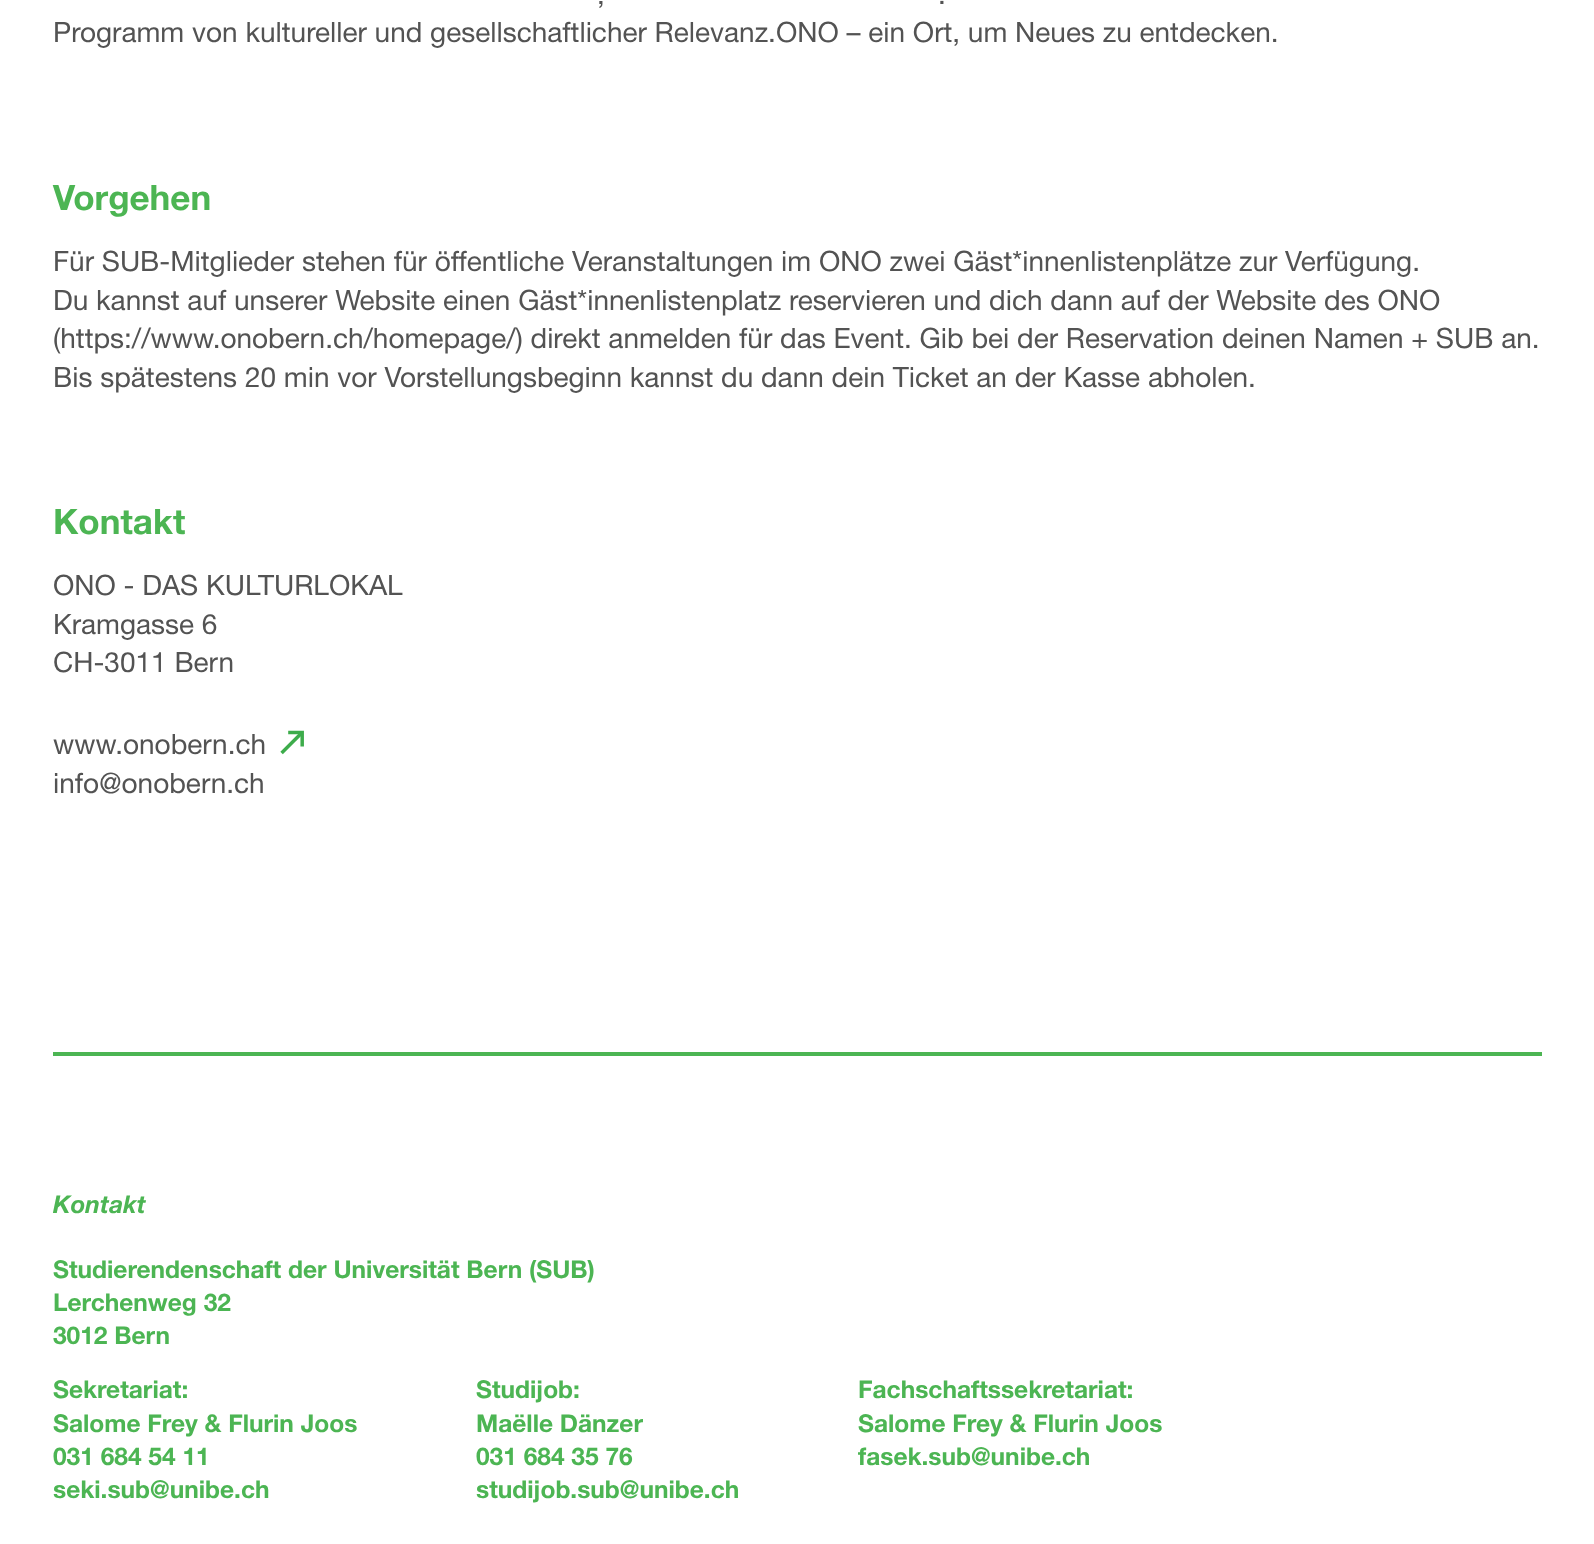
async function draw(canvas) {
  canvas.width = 1594;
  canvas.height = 1544;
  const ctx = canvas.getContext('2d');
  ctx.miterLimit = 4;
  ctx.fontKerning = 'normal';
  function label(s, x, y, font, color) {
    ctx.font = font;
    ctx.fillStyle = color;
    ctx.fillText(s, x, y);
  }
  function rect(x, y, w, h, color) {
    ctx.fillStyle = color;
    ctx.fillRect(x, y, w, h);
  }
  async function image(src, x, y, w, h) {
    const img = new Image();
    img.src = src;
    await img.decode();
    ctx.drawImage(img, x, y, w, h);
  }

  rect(0, 0, 1594, 1544, '#fff');
  label(',', 597, 4, '28px "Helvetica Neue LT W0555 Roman"', '#535353');
  label('.', 938, 4, '28px "Helvetica Neue LT W0555 Roman"', '#535353');
  label('Programm von kultureller und gesellschaftlicher Relevanz.ONO – ein Ort, um Neues zu entdecken.', 53, 42, '28px "Helvetica Neue LT W0555 Roman"', '#535353');
  label('Vorgehen', 53, 210, 'bold 35px "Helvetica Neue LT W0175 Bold"', '#4cb553');
  label('Für SUB-Mitglieder stehen für öffentliche Veranstaltungen im ONO zwei Gäst*innenlistenplätze zur Verfügung.', 53, 271, '28px "Helvetica Neue LT W0555 Roman"', '#535353');
  label('Du kannst auf unserer Website einen Gäst*innenlistenplatz reservieren und dich dann auf der Website des ONO', 53, 310, '28px "Helvetica Neue LT W0555 Roman"', '#535353');
  label('(https://www.onobern.ch/homepage/) direkt anmelden für das Event. Gib bei der Reservation deinen Namen + SUB an.', 53, 348, '28px "Helvetica Neue LT W0555 Roman"', '#535353');
  label('Bis spätestens 20 min vor Vorstellungsbeginn kannst du dann dein Ticket an der Kasse abholen.', 53, 387, '28px "Helvetica Neue LT W0555 Roman"', '#535353');
  label('Kontakt', 53, 534, 'bold 35px "Helvetica Neue LT W0175 Bold"', '#4cb553');
  label('ONO - DAS KULTURLOKAL', 53, 595, '28px "Helvetica Neue LT W0555 Roman"', '#535353');
  label('Kramgasse 6', 53, 634, '28px "Helvetica Neue LT W0555 Roman"', '#535353');
  label('CH-3011 Bern', 53, 672, '28px "Helvetica Neue LT W0555 Roman"', '#535353');
  label('www.onobern.ch', 53, 754, '28px "Helvetica Neue LT W0555 Roman"', '#535353');
  await image('assets/img1.png', 280, 730, 24, 25);
  label('info@onobern.ch', 53, 793, '28px "Helvetica Neue LT W0555 Roman"', '#535353');
  rect(53, 1052, 1489, 4, '#4cb553');
  label('Kontakt', 53, 1213, 'bold 24.5px "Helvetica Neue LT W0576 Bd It"', '#4cb553');
  label('Studierendenschaft der Universität Bern (SUB)', 53, 1278, 'bold 24.5px "Helvetica Neue LT W0175 Bold"', '#4cb553');
  label('Lerchenweg 32', 53, 1311, 'bold 24.5px "Helvetica Neue LT W0175 Bold"', '#4cb553');
  label('3012 Bern', 53, 1344, 'bold 24.5px "Helvetica Neue LT W0175 Bold"', '#4cb553');
  label('Sekretariat:', 53, 1398, 'bold 24.5px "Helvetica Neue LT W0175 Bold"', '#4cb553');
  label('Salome Frey & Flurin Joos', 53, 1432, 'bold 24.5px "Helvetica Neue LT W0175 Bold"', '#4cb553');
  label('031 684 54 11', 53, 1465, 'bold 24.5px "Helvetica Neue LT W0175 Bold"', '#4cb553');
  label('seki.sub@unibe.ch', 53, 1498, 'bold 24.5px "Helvetica Neue LT W0175 Bold"', '#4cb553');
  label('Studijob:', 476, 1398, 'bold 24.5px "Helvetica Neue LT W0175 Bold"', '#4cb553');
  label('Maëlle Dänzer', 476, 1432, 'bold 24.5px "Helvetica Neue LT W0175 Bold"', '#4cb553');
  label('031 684 35 76', 476, 1465, 'bold 24.5px "Helvetica Neue LT W0175 Bold"', '#4cb553');
  label('studijob.sub@unibe.ch', 476, 1498, 'bold 24.5px "Helvetica Neue LT W0175 Bold"', '#4cb553');
  label('Fachschaftssekretariat:', 858, 1398, 'bold 24.5px "Helvetica Neue LT W0175 Bold"', '#4cb553');
  label('Salome Frey & Flurin Joos', 858, 1432, 'bold 24.5px "Helvetica Neue LT W0175 Bold"', '#4cb553');
  label('fasek.sub@unibe.ch', 858, 1465, 'bold 24.5px "Helvetica Neue LT W0175 Bold"', '#4cb553');
}

draw(document.querySelector('canvas'));
